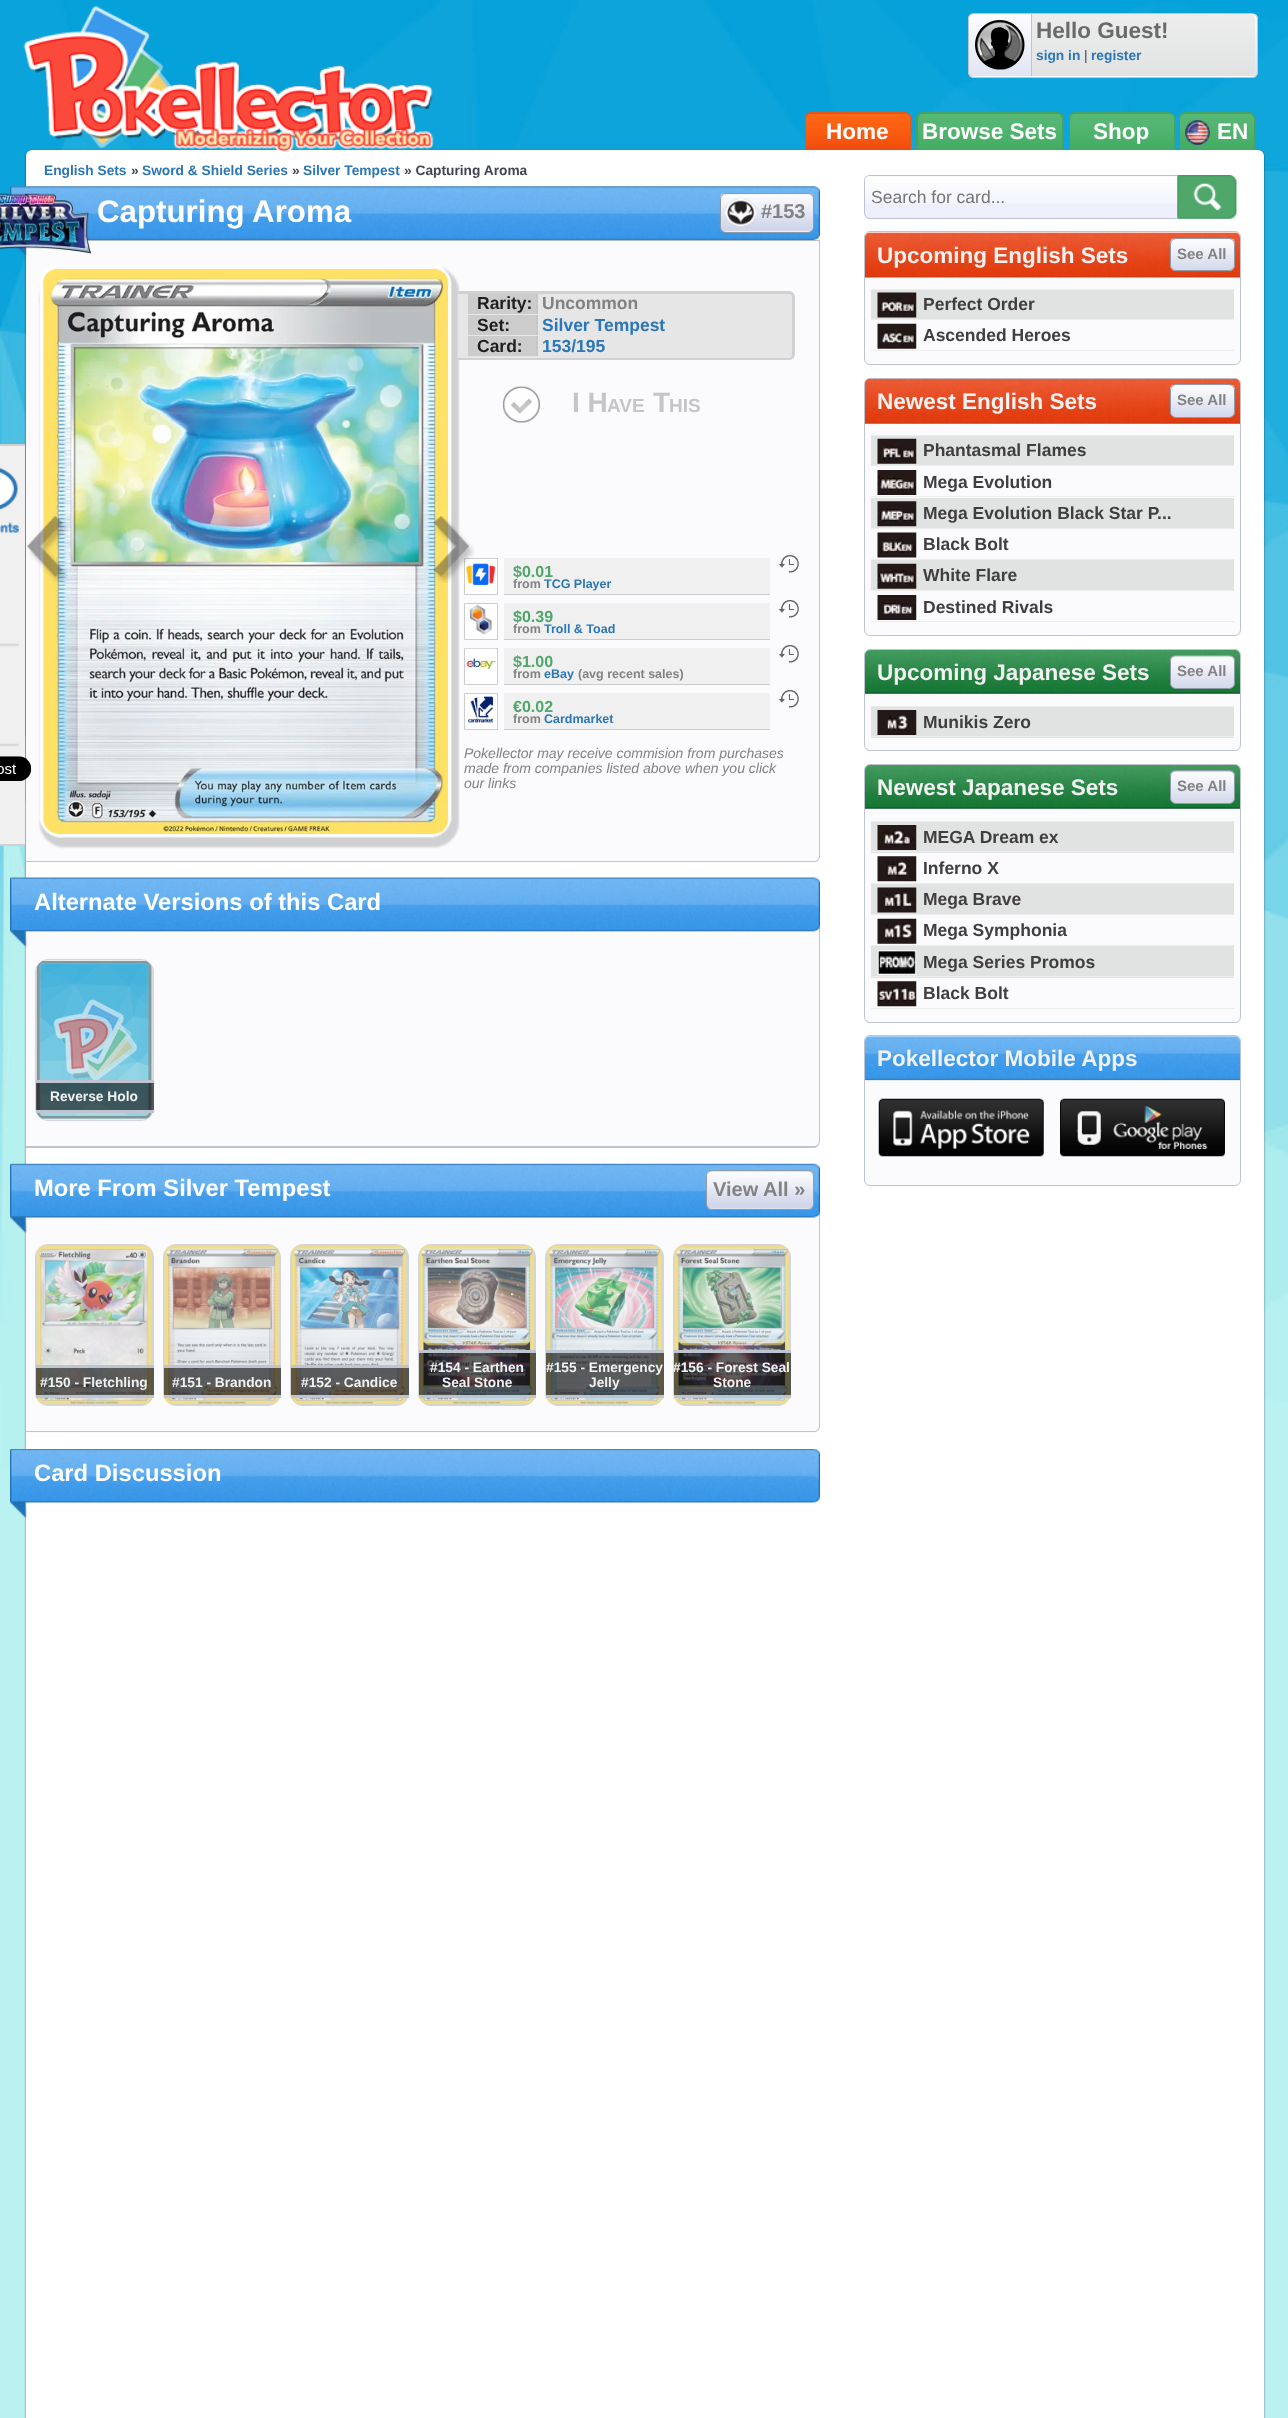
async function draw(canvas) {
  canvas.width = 1288;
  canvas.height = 2418;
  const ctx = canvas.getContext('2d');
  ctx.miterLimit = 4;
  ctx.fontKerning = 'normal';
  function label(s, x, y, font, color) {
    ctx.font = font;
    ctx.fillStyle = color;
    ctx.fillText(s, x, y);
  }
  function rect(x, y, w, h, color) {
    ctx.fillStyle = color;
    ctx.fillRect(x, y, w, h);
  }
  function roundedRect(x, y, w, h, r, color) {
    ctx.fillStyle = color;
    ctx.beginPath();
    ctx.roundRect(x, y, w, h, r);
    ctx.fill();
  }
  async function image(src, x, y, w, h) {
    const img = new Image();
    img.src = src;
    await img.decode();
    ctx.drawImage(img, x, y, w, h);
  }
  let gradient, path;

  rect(0, 0, 1288, 2418, '#baf2f1');
  await image('assets/img1.png', 0, 0, 1288, 1469);
  ctx.fillStyle = '#00000080';
  ctx.filter = 'blur(1px)';
  ctx.beginPath();
  ctx.roundRect(26, 151, 1238, 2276, 6);
  ctx.fill();
  ctx.filter = 'none';
  roundedRect(26, 150, 1238, 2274, 6, '#fff');
  await image('assets/img2.png', 23, 6, 411, 147);
  ctx.save();
  ctx.beginPath();
  ctx.roundRect(968, 13, 290, 65, 6);
  ctx.clip();
  gradient = ctx.createLinearGradient(1113, 14, 1113, 76);
  gradient.addColorStop(0, '#fdfdfe');
  gradient.addColorStop(1, '#e1e5f3');
  ctx.fillStyle = gradient;
  ctx.fillRect(968, 14, 290, 62);
  gradient = ctx.createLinearGradient(1113, 76, 1113, 139);
  gradient.addColorStop(0, '#fdfdfe');
  gradient.addColorStop(1, '#e1e5f3');
  ctx.fillStyle = gradient;
  ctx.fillRect(968, 76, 290, 2);
  ctx.restore();
  ctx.beginPath();
  ctx.roundRect(968.5, 13.5, 289, 64, 5.5);
  ctx.strokeStyle = '#bfc4d1';
  ctx.stroke();
  await image('assets/img3.png', 975, 20, 50, 50);
  gradient = ctx.createLinearGradient(1144, 14, 1144, 76);
  gradient.addColorStop(0, '#ededed');
  gradient.addColorStop(1, '#e1e3e3');
  ctx.fillStyle = gradient;
  ctx.beginPath();
  ctx.roundRect(1031, 14, 224, 62, [0, 6, 6, 0]);
  ctx.fill();
  rect(1031, 14, 1, 62, '#bfc4d1');
  label('Hello Guest!', 1036, 38, 'bold 22.5px Liberation Sans', '#6a6a6a');
  label('sign in', 1036, 60, 'bold 13.75px Liberation Sans', '#2a76b7');
  label('|', 1084, 60, '13.75px Liberation Sans', '#414554');
  label('register', 1091, 60, 'bold 13.75px Liberation Sans', '#2a76b7');
  await image('assets/img4.png', 805, 112, 107, 38);
  ctx.fillStyle = '#e65711';
  path = new Path2D('M811 112H905C908 112 911 115 911 119V150H805V119C805 115 808 112 811 112ZM811 114H905C908 114 910 116 910 119V150H806V119C806 116 808 114 811 114Z');
  ctx.fill(path, 'evenodd');
  label('Home', 826, 139, 'bold 22.5px Liberation Sans', '#fff');
  await image('assets/img5.png', 916, 114, 148, 36);
  ctx.fillStyle = '#45a261';
  path = new Path2D('M922 112H1058C1061 112 1064 115 1064 119V150H916V119C916 115 919 112 922 112ZM922 114H1058C1060 114 1062 116 1062 119V150H918V119C918 116 920 114 922 114Z');
  ctx.fill(path, 'evenodd');
  label('Browse Sets', 922, 139, 'bold 22.5px Liberation Sans', '#fff');
  await image('assets/img6.png', 1068, 113, 107, 37);
  ctx.fillStyle = '#45a261';
  path = new Path2D('M1075 112H1169C1172 112 1175 115 1175 119V150H1069V119C1069 115 1072 112 1075 112ZM1075 114H1169C1172 114 1174 116 1174 119V150H1070V119C1070 116 1072 114 1075 114Z');
  ctx.fill(path, 'evenodd');
  label('Shop', 1093, 139, 'bold 22.5px Liberation Sans', '#fff');
  await image('assets/img7.png', 1178, 113, 77, 37);
  ctx.fillStyle = '#45a261';
  path = new Path2D('M1185 112H1249C1252 112 1255 115 1255 119V150H1179V119C1179 115 1182 112 1185 112ZM1185 114H1249C1252 114 1254 116 1254 119V150H1180V119C1180 116 1182 114 1185 114Z');
  ctx.fill(path, 'evenodd');
  await image('assets/img8.png', 1185, 120, 25, 25);
  label('EN', 1217, 139, 'bold 22.5px Liberation Sans', '#fff');
  label('English Sets', 44, 175, 'bold 13.75px Liberation Sans', '#2a76b7');
  label('»', 131, 175, 'bold 13.75px Liberation Sans', '#414554');
  label('Sword & Shield Series', 142, 175, 'bold 13.75px Liberation Sans', '#2a76b7');
  label('»', 292, 175, 'bold 13.75px Liberation Sans', '#414554');
  label('Silver Tempest', 303, 175, 'bold 13.75px Liberation Sans', '#2a76b7');
  label('» Capturing Aroma', 404, 175, 'bold 13.75px Liberation Sans', '#414554');
  ctx.fillStyle = '#fbfbfd';
  ctx.beginPath();
  ctx.roundRect(26, 240, 794, 623, [0, 0, 6, 0]);
  ctx.fill();
  ctx.fillStyle = '#bfc4d1';
  path = new Path2D('M26 240H820V856C820 860 817 862 814 862H26ZM26 241H819V856C819 859 817 861 814 861H26Z');
  ctx.fill(path, 'evenodd');
  await image('assets/img9.png', 10, 186, 810, 70);
  await image('assets/img10.png', 0, 193, 91, 61);
  label('Capturing Aroma', 97, 222, 'bold 31.25px Liberation Sans', '#fff');
  await image('assets/img11.png', 720, 193, 94, 40);
  ctx.beginPath();
  ctx.roundRect(720.5, 193.5, 93, 39, 5.5);
  ctx.strokeStyle = '#8e9ba6';
  ctx.stroke();
  await image('assets/img12.png', 725, 198, 32, 29);
  label('#153', 761, 218, 'bold 20px Liberation Sans', '#828282');
  rect(0, 446, 25, 398, '#f0f0f0');
  ctx.fillStyle = '#d1d1d2';
  path = new Path2D('M-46 444H25V846H-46C-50 846-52 843-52 840V450C-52 447-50 444-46 444ZM-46 446H25V844H-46C-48 844-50 842-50 840V450C-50 448-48 446-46 446Z');
  ctx.fill(path, 'evenodd');
  await image('assets/img13.png', 0, 467, 19, 66);
  await image('assets/img14.png', 0, 643, 19, 4);
  await image('assets/img14.png', 0, 743, 19, 4);
  await image('assets/img15.png', 0, 756, 32, 25);
  await image('assets/img16.png', 38, 266, 422, 583);
  await image('assets/img17.png', 42, 268, 407, 567);
  await image('assets/img18.png', 27, 516, 41, 67);
  ctx.fillStyle = '#fff';
  ctx.beginPath();
  ctx.rect(464.5, 558.5, 33, 36);
  ctx.fill();
  ctx.strokeStyle = '#ccc';
  ctx.stroke();
  await image('assets/img21.png', 465, 563, 31, 23);
  await image('assets/img19.png', 433, 516, 42, 67);
  ctx.fillStyle = '#e6e6e6';
  ctx.beginPath();
  ctx.roundRect(458, 291, 337, 69, [0, 6, 6, 0]);
  ctx.fill();
  ctx.fillStyle = '#d1d1d2';
  path = new Path2D('M458 291H789C792 291 795 294 795 298V354C795 357 792 360 789 360H458ZM458 294H789C791 294 792 295 792 298V354C792 356 791 358 789 358H458Z');
  ctx.fill(path, 'evenodd');
  rect(468, 294, 70, 20, '#ccc');
  path = new Path2D('M537 294V314');
  ctx.strokeStyle = '#c0c0c0';
  ctx.lineWidth = 1.2;
  ctx.setLineDash([3.75, 1.66]);
  ctx.stroke(path);
  label('Rarity:', 477, 309, 'bold 17.5px Liberation Sans', '#1e1e1e');
  label('Uncommon', 542, 309, 'bold 17.5px Liberation Sans', '#828282');
  rect(468, 315, 70, 20, '#ccc');
  path = new Path2D('M537 315V335');
  ctx.stroke(path);
  label('Set:', 477, 331, 'bold 17.5px Liberation Sans', '#1e1e1e');
  label('Silver Tempest', 542, 331, 'bold 17.5px Liberation Sans', '#2a76b7');
  rect(468, 336, 70, 20, '#ccc');
  path = new Path2D('M537 336V356');
  ctx.stroke(path);
  label('Card:', 477, 352, 'bold 17.5px Liberation Sans', '#1e1e1e');
  label('153/195', 542, 352, 'bold 17.5px Liberation Sans', '#2a76b7');
  await image('assets/img20.png', 503, 386, 37, 37);
  label('I H', 572, 412, 'bold 28px Liberation Sans', '#c5c5c5');
  label('AVE', 607, 412, 'bold 19px Liberation Sans', '#c5c5c5');
  label('T', 653, 412, 'bold 28px Liberation Sans', '#c5c5c5');
  label('HIS', 669, 412, 'bold 19px Liberation Sans', '#c5c5c5');
  rect(504, 558, 266, 36, '#f0f0f0');
  rect(504, 594, 266, 1, '#ccc');
  label('$0.01', 513, 577, 'bold 16px Liberation Sans', '#4fa76a');
  label('from', 513, 588, 'bold 12.5px Liberation Sans', '#828282');
  label('TCG Player', 544, 588, 'bold 12.5px Liberation Sans', '#2a76b7');
  await image('assets/img22.png', 778, 555, 21, 18);
  ctx.fillStyle = '#fff';
  ctx.beginPath();
  ctx.rect(464.5, 603.5, 33, 36);
  ctx.fill();
  ctx.strokeStyle = '#ccc';
  ctx.lineWidth = 1;
  ctx.setLineDash([]);
  ctx.stroke();
  await image('assets/img23.png', 469, 604, 23, 31);
  rect(504, 603, 266, 36, '#f0f0f0');
  rect(504, 639, 266, 1, '#ccc');
  label('$0.39', 513, 622, 'bold 16px Liberation Sans', '#4fa76a');
  label('from', 513, 633, 'bold 12.5px Liberation Sans', '#828282');
  label('Troll & Toad', 544, 633, 'bold 12.5px Liberation Sans', '#2a76b7');
  await image('assets/img22.png', 778, 600, 21, 18);
  ctx.fillStyle = '#fff';
  ctx.beginPath();
  ctx.rect(464.5, 648.5, 33, 36);
  ctx.fill();
  ctx.stroke();
  await image('assets/img24.png', 465, 648, 31, 22);
  rect(504, 648, 266, 36, '#f0f0f0');
  rect(504, 684, 266, 1, '#ccc');
  label('$1.00', 513, 667, 'bold 16px Liberation Sans', '#4fa76a');
  label('from', 513, 678, 'bold 12.5px Liberation Sans', '#828282');
  label('eBay', 544, 678, 'bold 12.5px Liberation Sans', '#2a76b7');
  label('(avg recent sales)', 578, 678, 'bold 12.5px Liberation Sans', '#828282');
  await image('assets/img22.png', 778, 645, 21, 18);
  ctx.fillStyle = '#fff';
  ctx.beginPath();
  ctx.rect(464.5, 693.5, 33, 36);
  ctx.fill();
  ctx.stroke();
  await image('assets/img25.png', 467, 696, 27, 27);
  rect(504, 693, 266, 36, '#f0f0f0');
  rect(504, 729, 266, 1, '#ccc');
  label('€0.02', 513, 712, 'bold 16px Liberation Sans', '#4fa76a');
  label('from', 513, 723, 'bold 12.5px Liberation Sans', '#828282');
  label('Cardmarket', 544, 723, 'bold 12.5px Liberation Sans', '#2a76b7');
  await image('assets/img22.png', 778, 690, 21, 18);
  label('Pokellector may receive commision from purchases', 464, 758, 'italic 14px Liberation Sans', '#828282');
  label('made from companies listed above when you click', 464, 773, 'italic 14px Liberation Sans', '#828282');
  label('our links', 464, 788, 'italic 14px Liberation Sans', '#828282');
  ctx.fillStyle = '#fbfbfd';
  ctx.beginPath();
  ctx.roundRect(26, 926, 794, 222, [0, 0, 6, 0]);
  ctx.fill();
  ctx.fillStyle = '#bfc4d1';
  path = new Path2D('M26 926H820V1141C820 1145 817 1148 814 1148H26ZM26 928H819V1141C819 1144 817 1146 814 1146H26Z');
  ctx.fill(path, 'evenodd');
  await image('assets/img26.png', 10, 877, 810, 70);
  label('Alternate Versions of this Card', 34, 910, 'bold 23.75px Liberation Sans', '#fff');
  ctx.fillStyle = '#d1d5de';
  ctx.beginPath();
  ctx.roundRect(35.5, 959.5, 118, 161, 12.5);
  ctx.fill();
  ctx.strokeStyle = '#d1d5de';
  ctx.stroke();
  await image('assets/img27.png', 36, 960, 117, 160);
  rect(36, 1083, 118, 27, '#00000099');
  rect(36, 1080, 118, 3, '#bfc4d1');
  rect(36, 1110, 118, 3, '#bfc4d1');
  label('Reverse Holo', 50, 1101, 'bold 13.75px Liberation Sans', '#f1f1f1');
  ctx.fillStyle = '#fbfbfd';
  ctx.beginPath();
  ctx.roundRect(26, 1211, 794, 222, [0, 0, 6, 0]);
  ctx.fill();
  ctx.fillStyle = '#bfc4d1';
  path = new Path2D('M26 1211H820V1426C820 1430 817 1432 814 1432H26ZM26 1212H819V1426C819 1429 817 1431 814 1431H26Z');
  ctx.fill(path, 'evenodd');
  await image('assets/img28.png', 10, 1163, 810, 71);
  label('More From Silver Tempest', 34, 1196, 'bold 23.75px Liberation Sans', '#fff');
  await image('assets/img29.png', 706, 1171, 108, 39);
  ctx.beginPath();
  ctx.roundRect(706.5, 1170.5, 107, 39, 5.5);
  ctx.strokeStyle = '#8e9ba6';
  ctx.stroke();
  label('View All »', 713, 1196, 'bold 20px Liberation Sans', '#828282');
  ctx.fillStyle = '#d1d5de';
  ctx.beginPath();
  ctx.roundRect(35.5, 1244.5, 118, 161, 12.5);
  ctx.fill();
  ctx.strokeStyle = '#d1d5de';
  ctx.stroke();
  await image('assets/img30.png', 36, 1245, 116, 160);
  rect(36, 1368, 118, 27, '#00000099');
  rect(36, 1365, 118, 3, '#bfc4d1');
  rect(36, 1395, 118, 3, '#bfc4d1');
  label('#150 - Fletchling', 40, 1387, 'bold 13.75px Liberation Sans', '#f1f1f1');
  ctx.fillStyle = '#d1d5de';
  ctx.beginPath();
  ctx.roundRect(163.5, 1244.5, 117, 161, 12.5);
  ctx.fill();
  ctx.stroke();
  await image('assets/img31.png', 164, 1245, 116, 160);
  rect(164, 1368, 117, 27, '#00000099');
  rect(164, 1365, 117, 3, '#bfc4d1');
  rect(164, 1395, 117, 3, '#bfc4d1');
  label('#151 - Brandon', 172, 1387, 'bold 13.75px Liberation Sans', '#f1f1f1');
  ctx.fillStyle = '#d1d5de';
  ctx.beginPath();
  ctx.roundRect(290.5, 1244.5, 118, 161, 12.5);
  ctx.fill();
  ctx.stroke();
  await image('assets/img32.png', 291, 1245, 116, 160);
  rect(291, 1368, 118, 27, '#00000099');
  rect(291, 1365, 118, 3, '#bfc4d1');
  rect(291, 1395, 118, 3, '#bfc4d1');
  label('#152 - Candice', 301, 1387, 'bold 13.75px Liberation Sans', '#f1f1f1');
  ctx.fillStyle = '#d1d5de';
  ctx.beginPath();
  ctx.roundRect(418.5, 1244.5, 117, 161, 12.5);
  ctx.fill();
  ctx.stroke();
  await image('assets/img33.png', 419, 1245, 116, 160);
  rect(419, 1353, 117, 42, '#00000099');
  rect(419, 1350, 117, 3, '#bfc4d1');
  rect(419, 1395, 117, 3, '#bfc4d1');
  label('#154 - Earthen', 430, 1372, 'bold 13.75px Liberation Sans', '#f1f1f1');
  label('Seal Stone', 442, 1387, 'bold 13.75px Liberation Sans', '#f1f1f1');
  ctx.fillStyle = '#d1d5de';
  ctx.beginPath();
  ctx.roundRect(545.5, 1244.5, 118, 161, 12.5);
  ctx.fill();
  ctx.stroke();
  await image('assets/img34.png', 546, 1245, 116, 160);
  rect(546, 1353, 118, 42, '#00000099');
  rect(546, 1350, 118, 3, '#bfc4d1');
  rect(546, 1395, 118, 3, '#bfc4d1');
  label('#155 - Emergency', 546, 1372, 'bold 13.75px Liberation Sans', '#f1f1f1');
  label('Jelly', 589, 1387, 'bold 13.75px Liberation Sans', '#f1f1f1');
  ctx.fillStyle = '#d1d5de';
  ctx.beginPath();
  ctx.roundRect(673.5, 1244.5, 117, 161, 12.5);
  ctx.fill();
  ctx.stroke();
  await image('assets/img35.png', 674, 1245, 116, 160);
  rect(674, 1353, 117, 42, '#00000099');
  rect(674, 1350, 117, 3, '#bfc4d1');
  rect(674, 1395, 117, 3, '#bfc4d1');
  label('#156 - Forest Seal', 673, 1372, 'bold 13.75px Liberation Sans', '#f1f1f1');
  label('Stone', 713, 1387, 'bold 13.75px Liberation Sans', '#f1f1f1');
  await image('assets/img36.png', 10, 1449, 810, 70);
  label('Card Discussion', 34, 1481, 'bold 23.75px Liberation Sans', '#fff');
  rect(864, 175, 375, 44, '#fbfbfd');
  ctx.fillStyle = '#edeffb';
  ctx.beginPath();
  ctx.roundRect(864, 175, 314, 44, [6, 0, 0, 6]);
  ctx.fill();
  await image('assets/img37.png', 864, 176, 314, 28);
  ctx.fillStyle = '#bfc1d7';
  path = new Path2D('M870 175H1178V219H870C867 219 864 216 864 212V181C864 178 867 175 870 175ZM870 176H1178V218H870C867 218 865 215 865 212V181C865 178 867 176 870 176Z');
  ctx.fill(path, 'evenodd');
  label('Search for card...', 871, 203, '17.5px Liberation Sans', '#757575');
  rect(1178, 216, 58, 3, '#edeffb');
  await image('assets/img38.png', 1177, 175, 60, 44);
  await image('assets/img39.png', 1177, 175, 60, 44);
  ctx.fillStyle = '#fbfbfd';
  ctx.beginPath();
  ctx.roundRect(864.5, 231.5, 376, 133, 5.5);
  ctx.fill();
  ctx.strokeStyle = '#bfc4d1';
  ctx.stroke();
  await image('assets/img40.png', 865, 232, 375, 46);
  label('Upcoming English Sets', 877, 263, 'bold 22.5px Liberation Sans', '#f1f1f1');
  await image('assets/img41.png', 1170, 238, 65, 34);
  ctx.beginPath();
  ctx.roundRect(1170.5, 238.5, 64, 32, 5.5);
  ctx.strokeStyle = '#8e9ba6';
  ctx.stroke();
  label('See All', 1177, 259, 'bold 15px Liberation Sans', '#828282');
  rect(871, 290, 363, 29, '#e1e3e3');
  rect(871, 289, 363, 1, '#ededec');
  rect(871, 319, 363, 1, '#ededec');
  await image('assets/img42.png', 877, 292, 40, 26);
  label('Perfect Order', 923, 310, 'bold 17.5px Liberation Sans', '#403e3f');
  rect(871, 350, 363, 1, '#ededec');
  await image('assets/img43.png', 877, 323, 40, 26);
  label('Ascended Heroes', 923, 341, 'bold 17.5px Liberation Sans', '#403e3f');
  ctx.fillStyle = '#fbfbfd';
  ctx.beginPath();
  ctx.roundRect(864.5, 378.5, 376, 257, 5.5);
  ctx.fill();
  ctx.strokeStyle = '#bfc4d1';
  ctx.stroke();
  await image('assets/img44.png', 865, 378, 375, 46);
  label('Newest English Sets', 877, 409, 'bold 22.5px Liberation Sans', '#f1f1f1');
  await image('assets/img45.png', 1170, 385, 65, 33);
  ctx.beginPath();
  ctx.roundRect(1170.5, 384.5, 64, 33, 5.5);
  ctx.strokeStyle = '#8e9ba6';
  ctx.stroke();
  label('See All', 1177, 405, 'bold 15px Liberation Sans', '#828282');
  rect(871, 436, 363, 29, '#e1e3e3');
  rect(871, 435, 363, 1, '#ededec');
  rect(871, 465, 363, 1, '#ededec');
  await image('assets/img46.png', 877, 438, 40, 26);
  label('Phantasmal Flames', 923, 456, 'bold 17.5px Liberation Sans', '#403e3f');
  rect(871, 496, 363, 1, '#ededec');
  await image('assets/img47.png', 877, 470, 40, 25);
  label('Mega Evolution', 923, 488, 'bold 17.5px Liberation Sans', '#403e3f');
  rect(871, 498, 363, 30, '#e1e3e3');
  rect(871, 528, 363, 1, '#ededec');
  await image('assets/img48.png', 877, 501, 40, 26);
  label('Mega Evolution Black Star P...', 923, 519, 'bold 17.5px Liberation Sans', '#403e3f');
  rect(871, 559, 363, 1, '#ededec');
  await image('assets/img49.png', 877, 532, 40, 26);
  label('Black Bolt', 923, 550, 'bold 17.5px Liberation Sans', '#403e3f');
  rect(871, 560, 363, 30, '#e1e3e3');
  rect(871, 590, 363, 1, '#ededec');
  await image('assets/img50.png', 877, 563, 40, 26);
  label('White Flare', 923, 581, 'bold 17.5px Liberation Sans', '#403e3f');
  rect(871, 621, 363, 1, '#ededec');
  await image('assets/img51.png', 877, 595, 40, 25);
  label('Destined Rivals', 923, 613, 'bold 17.5px Liberation Sans', '#403e3f');
  ctx.fillStyle = '#fbfbfd';
  ctx.beginPath();
  ctx.roundRect(864.5, 649.5, 376, 101, 5.5);
  ctx.fill();
  ctx.strokeStyle = '#bfc4d1';
  ctx.stroke();
  await image('assets/img52.png', 865, 650, 375, 44);
  label('Upcoming Japanese Sets', 877, 680, 'bold 22.5px Liberation Sans', '#f1f1f1');
  await image('assets/img53.png', 1170, 656, 65, 33);
  ctx.beginPath();
  ctx.roundRect(1170.5, 655.5, 64, 33, 5.5);
  ctx.strokeStyle = '#8e9ba6';
  ctx.stroke();
  label('See All', 1177, 676, 'bold 15px Liberation Sans', '#828282');
  rect(871, 707, 363, 31, '#e1e3e3');
  rect(871, 706, 363, 1, '#ededec');
  rect(871, 736, 363, 1, '#ededec');
  await image('assets/img54.png', 877, 710, 40, 25);
  label('Munikis Zero', 923, 728, 'bold 17.5px Liberation Sans', '#403e3f');
  ctx.fillStyle = '#fbfbfd';
  ctx.beginPath();
  ctx.roundRect(864.5, 764.5, 376, 258, 5.5);
  ctx.fill();
  ctx.strokeStyle = '#bfc4d1';
  ctx.stroke();
  await image('assets/img52.png', 865, 765, 375, 44);
  label('Newest Japanese Sets', 877, 795, 'bold 22.5px Liberation Sans', '#f1f1f1');
  await image('assets/img53.png', 1170, 771, 65, 33);
  ctx.beginPath();
  ctx.roundRect(1170.5, 770.5, 64, 33, 5.5);
  ctx.strokeStyle = '#8e9ba6';
  ctx.stroke();
  label('See All', 1177, 791, 'bold 15px Liberation Sans', '#828282');
  rect(871, 822, 363, 31, '#e1e3e3');
  rect(871, 821, 363, 1, '#ededec');
  rect(871, 851, 363, 1, '#ededec');
  await image('assets/img55.png', 877, 825, 40, 25);
  label('MEGA Dream ex', 923, 843, 'bold 17.5px Liberation Sans', '#403e3f');
  rect(871, 883, 363, 1, '#ededec');
  await image('assets/img56.png', 877, 856, 40, 26);
  label('Inferno X', 923, 874, 'bold 17.5px Liberation Sans', '#403e3f');
  rect(871, 884, 363, 30, '#e1e3e3');
  rect(871, 914, 363, 1, '#ededec');
  await image('assets/img57.png', 877, 887, 40, 26);
  label('Mega Brave', 923, 905, 'bold 17.5px Liberation Sans', '#403e3f');
  rect(871, 945, 363, 1, '#ededec');
  await image('assets/img58.png', 877, 918, 40, 26);
  label('Mega Symphonia', 923, 936, 'bold 17.5px Liberation Sans', '#403e3f');
  rect(871, 946, 363, 32, '#e1e3e3');
  rect(871, 976, 363, 1, '#ededec');
  await image('assets/img59.png', 877, 950, 40, 25);
  label('Mega Series Promos', 923, 968, 'bold 17.5px Liberation Sans', '#403e3f');
  rect(871, 1008, 363, 1, '#ededec');
  await image('assets/img60.png', 877, 981, 40, 26);
  label('Black Bolt', 923, 999, 'bold 17.5px Liberation Sans', '#403e3f');
  ctx.fillStyle = '#fbfbfd';
  ctx.beginPath();
  ctx.roundRect(864.5, 1035.5, 376, 150, 5.5);
  ctx.fill();
  ctx.strokeStyle = '#bfc4d1';
  ctx.stroke();
  await image('assets/img61.png', 865, 1036, 375, 45);
  label('Pokellector Mobile Apps', 877, 1066, 'bold 22.5px Liberation Sans', '#f1f1f1');
  await image('assets/img62.png', 878, 1098, 166, 59);
  await image('assets/img63.png', 1060, 1098, 165, 59);
}

draw(document.querySelector('canvas'));
